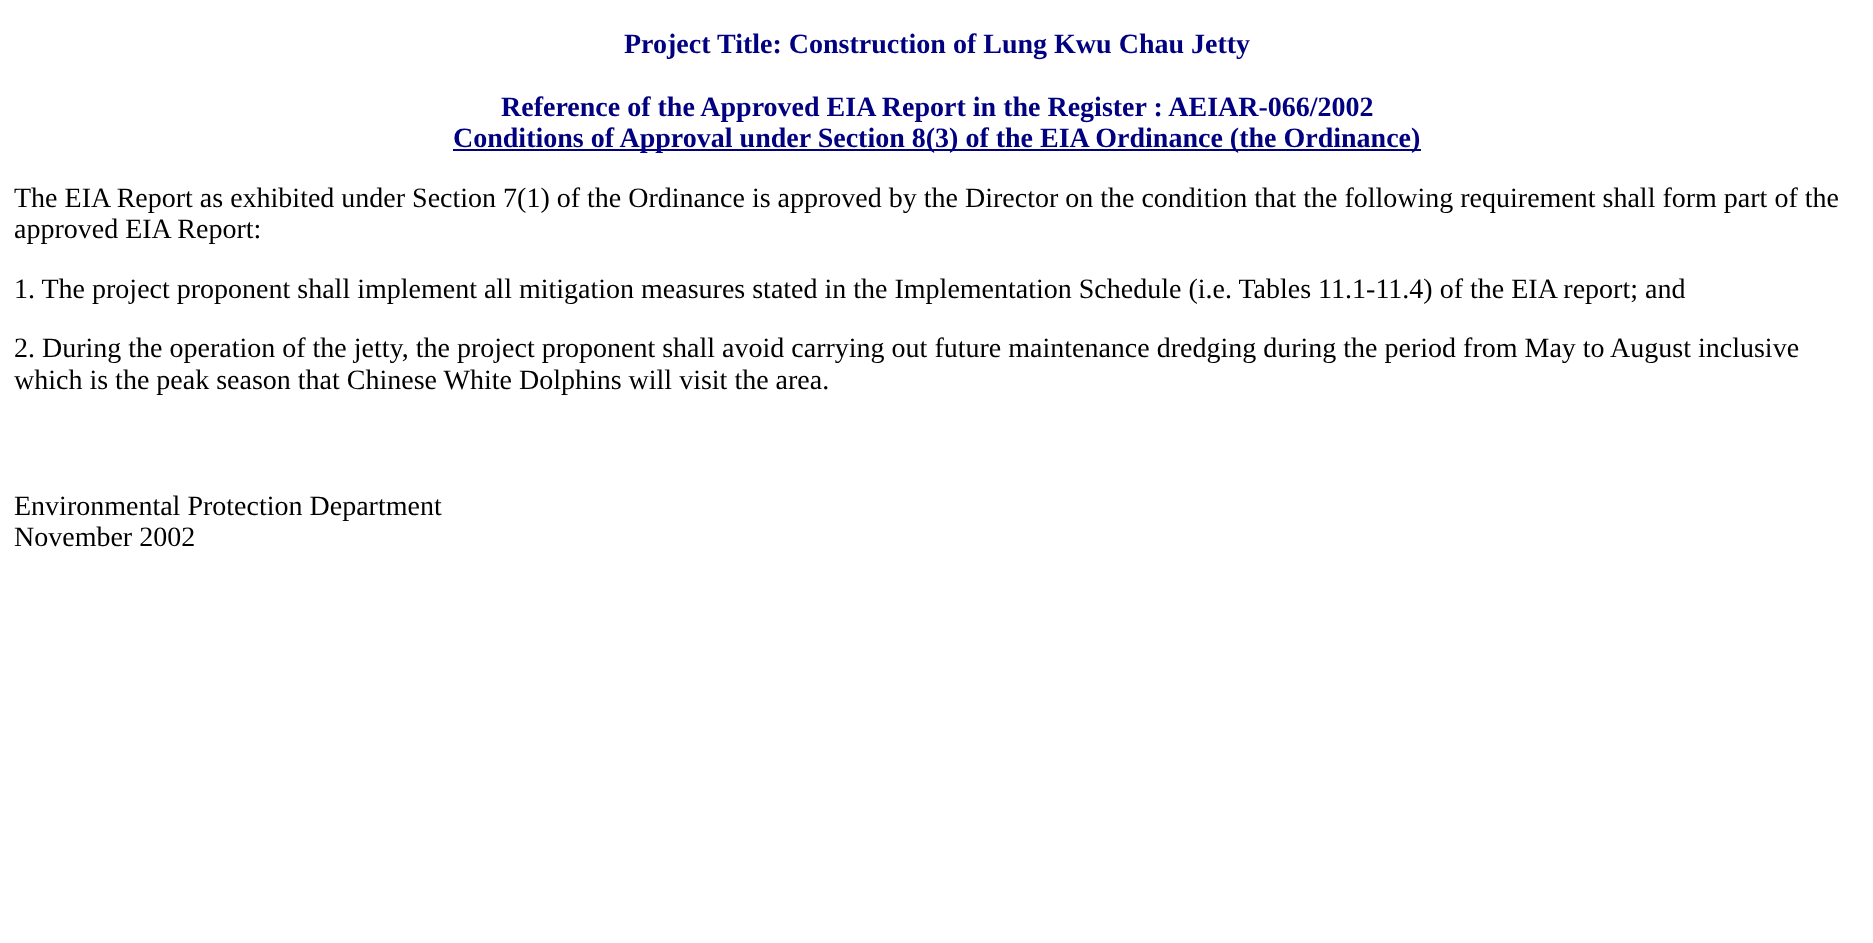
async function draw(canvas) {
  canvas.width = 1873;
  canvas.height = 943;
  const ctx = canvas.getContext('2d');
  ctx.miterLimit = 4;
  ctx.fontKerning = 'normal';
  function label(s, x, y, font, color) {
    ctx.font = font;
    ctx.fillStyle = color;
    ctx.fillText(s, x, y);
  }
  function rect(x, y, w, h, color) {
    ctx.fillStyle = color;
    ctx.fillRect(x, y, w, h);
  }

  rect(0, 0, 1873, 943, '#fff');
  label('Project Title: Construction of Lung Kwu Chau Jetty', 624, 53, 'bold 28px Liberation Serif', '#000080');
  label('Reference of the Approved EIA Report in the Register : AEIAR-066/2002', 501, 116, 'bold 28px Liberation Serif', '#000080');
  rect(453, 149, 968, 2, '#000080');
  label('Conditions of Approval under Section 8(3) of the EIA Ordinance (the Ordinance)', 453, 147, 'bold 28px Liberation Serif', '#000080');
  label('The EIA Report as exhibited under Section 7(1) of the Ordinance is approved by the Director on the condition that the following requirement shall form part of the', 14, 207, '28px Liberation Serif', '#000');
  label('approved EIA Report:', 14, 238, '28px Liberation Serif', '#000');
  label('1. The project proponent shall implement all mitigation measures stated in the Implementation Schedule (i.e. Tables 11.1-11.4) of the EIA report; and', 14, 298, '28px Liberation Serif', '#000');
  label('2. During the operation of the jetty, the project proponent shall avoid carrying out future maintenance dredging during the period from May to August inclusive', 14, 357, '28px Liberation Serif', '#000');
  label('which is the peak season that Chinese White Dolphins will visit the area.', 14, 389, '28px Liberation Serif', '#000');
  label('Environmental Protection Department', 14, 515, '28px Liberation Serif', '#000');
  label('November 2002', 14, 546, '28px Liberation Serif', '#000');
}

draw(document.querySelector('canvas'));
